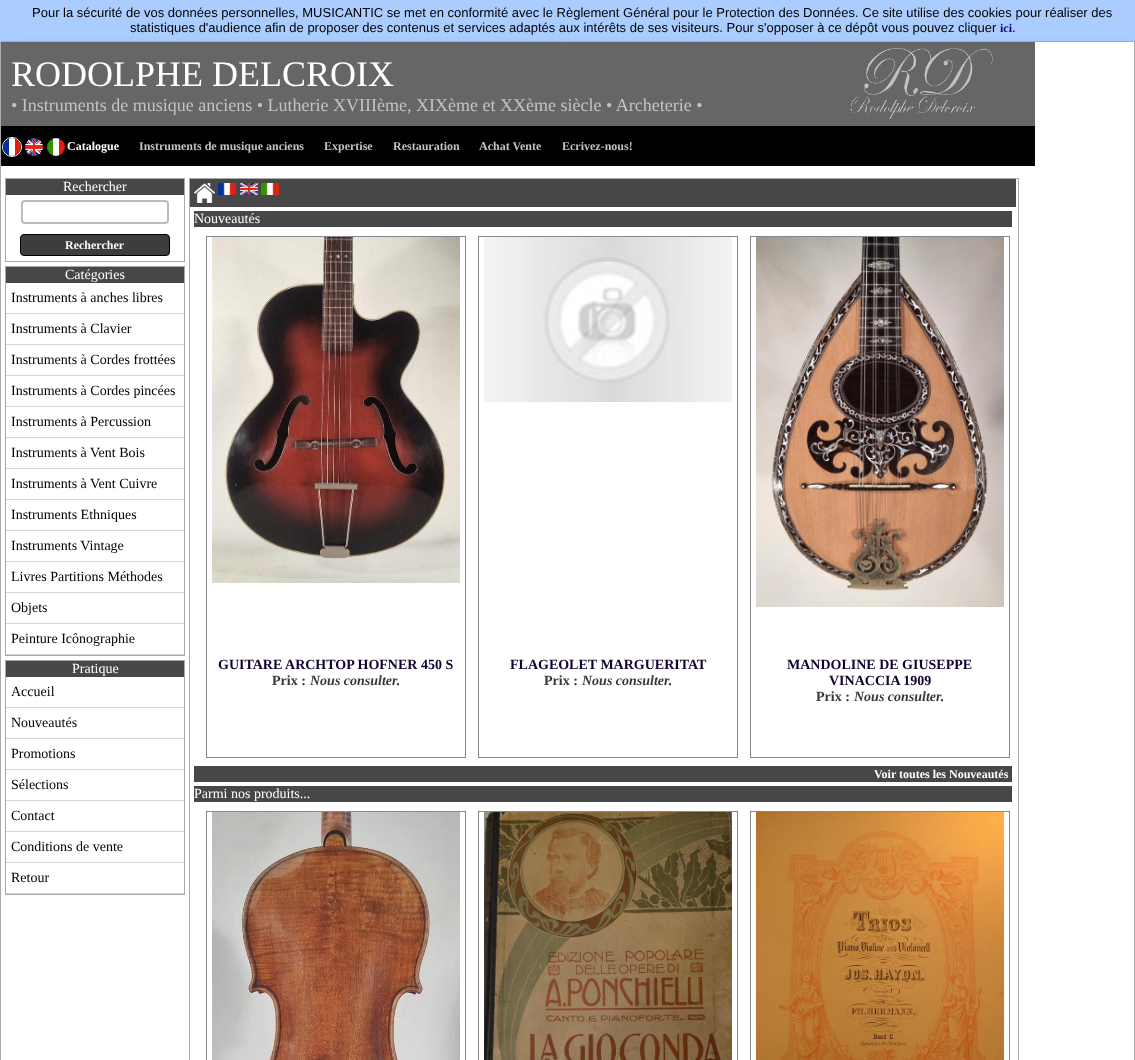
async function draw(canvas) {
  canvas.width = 1135;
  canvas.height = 1060;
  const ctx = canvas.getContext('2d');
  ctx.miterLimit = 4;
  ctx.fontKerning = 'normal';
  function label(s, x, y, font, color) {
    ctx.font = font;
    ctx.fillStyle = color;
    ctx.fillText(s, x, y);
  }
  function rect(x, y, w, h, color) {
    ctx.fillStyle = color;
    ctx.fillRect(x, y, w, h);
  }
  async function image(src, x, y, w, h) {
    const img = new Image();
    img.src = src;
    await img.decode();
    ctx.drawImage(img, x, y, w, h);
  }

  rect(0, 0, 1135, 1060, '#acf');
  label('Pour la sécurité de vos données personnelles, MUSICANTIC se met en conformité avec le Règlement Général pour le Protection des Données. Ce site utilise des cookies pour réaliser des', 32, 17, '13px Liberation Sans', '#000');
  label('statistiques d\'audience afin de proposer des contenus et services adaptés aux intérêts de ses visiteurs. Pour s\'opposer à ce dépôt vous pouvez cliquer', 130, 32, '13px Liberation Sans', '#000');
  label('ici', 1000, 32, 'bold 12px Liberation Serif', '#09077d');
  label('.', 1012, 32, '13px Liberation Sans', '#000');
  ctx.fillStyle = '#aaa';
  ctx.filter = 'blur(6px)';
  ctx.beginPath();
  ctx.rect(8, 49, 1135, 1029);
  ctx.fill();
  ctx.filter = 'none';
  ctx.fillStyle = '#fff';
  ctx.beginPath();
  ctx.rect(0.5, 41.5, 1134, 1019);
  ctx.fill();
  ctx.strokeStyle = '#aaa';
  ctx.stroke();
  rect(1, 126, 1034, 40, '#000');
  rect(1, 42, 1034, 84, '#666');
  label('RODOLPHE DELCROIX', 11, 86, '36px Liberation Serif', '#fff');
  label('• Instruments de musique anciens • Lutherie XVIIIème, XIXème et XXème siècle • Archeterie •', 11, 111, '18px Liberation Serif', '#c4c2c3');
  await image('assets/img1.png', 850, 48, 143, 71);
  ctx.beginPath();
  ctx.arc(12, 147, 9.5, 0, 2 * Math.PI);
  ctx.strokeStyle = '#fff';
  ctx.stroke();
  await image('assets/img2.png', 3, 138, 18, 18);
  await image('assets/img3.png', 25, 138, 18, 18);
  await image('assets/img4.png', 47, 138, 18, 18);
  label('Catalogue', 67, 150, 'bold 12px Liberation Serif', '#fff');
  label('Instruments de musique anciens', 139, 150, 'bold 12px Liberation Serif', '#c4c2c3');
  label('Expertise', 324, 150, 'bold 12px Liberation Serif', '#c4c2c3');
  label('Restauration', 393, 150, 'bold 12px Liberation Serif', '#c4c2c3');
  label('Achat Vente', 479, 150, 'bold 12px Liberation Serif', '#c4c2c3');
  label('Ecrivez-nous!', 562, 150, 'bold 12px Liberation Serif', '#c4c2c3');
  ctx.strokeStyle = '#a8a8a8';
  ctx.strokeRect(5.5, 178.5, 179, 83);
  rect(6, 179, 178, 16, '#474747');
  label('Rechercher', 63, 191, '14px Liberation Serif', '#fff');
  ctx.beginPath();
  ctx.roundRect(22, 201, 146, 22, 3);
  ctx.strokeStyle = '#bbb';
  ctx.lineWidth = 2;
  ctx.stroke();
  ctx.fillStyle = '#3d3d3d';
  ctx.beginPath();
  ctx.roundRect(20.5, 234.5, 149, 21, 3.5);
  ctx.fill();
  ctx.strokeStyle = '#000';
  ctx.lineWidth = 1;
  ctx.stroke();
  label('Rechercher', 65, 249, 'bold 12px Liberation Serif', '#f7f7f7');
  ctx.strokeStyle = '#a8a8a8';
  ctx.strokeRect(5.5, 266.5, 179, 389);
  rect(6, 267, 178, 16, '#474747');
  label('Catégories', 65, 279, '14px Liberation Serif', '#fff');
  rect(6, 313, 178, 1, '#d6d6d6');
  label('Instruments à anches libres', 11, 302, '14px Liberation Serif', '#000');
  rect(6, 344, 178, 1, '#d6d6d6');
  label('Instruments à Clavier', 11, 333, '14px Liberation Serif', '#000');
  rect(6, 375, 178, 1, '#d6d6d6');
  label('Instruments à Cordes frottées', 11, 364, '14px Liberation Serif', '#000');
  rect(6, 406, 178, 1, '#d6d6d6');
  label('Instruments à Cordes pincées', 11, 395, '14px Liberation Serif', '#000');
  rect(6, 437, 178, 1, '#d6d6d6');
  label('Instruments à Percussion', 11, 426, '14px Liberation Serif', '#000');
  rect(6, 468, 178, 1, '#d6d6d6');
  label('Instruments à Vent Bois', 11, 457, '14px Liberation Serif', '#000');
  rect(6, 499, 178, 1, '#d6d6d6');
  label('Instruments à Vent Cuivre', 11, 488, '14px Liberation Serif', '#000');
  rect(6, 530, 178, 1, '#d6d6d6');
  label('Instruments Ethniques', 11, 519, '14px Liberation Serif', '#000');
  rect(6, 561, 178, 1, '#d6d6d6');
  label('Instruments Vintage', 11, 550, '14px Liberation Serif', '#000');
  rect(6, 592, 178, 1, '#d6d6d6');
  label('Livres Partitions Méthodes', 11, 581, '14px Liberation Serif', '#000');
  rect(6, 623, 178, 1, '#d6d6d6');
  label('Objets', 11, 612, '14px Liberation Serif', '#000');
  rect(6, 654, 178, 1, '#d6d6d6');
  label('Peinture Icônographie', 11, 643, '14px Liberation Serif', '#000');
  ctx.strokeRect(5.5, 660.5, 179, 234);
  rect(6, 661, 178, 16, '#474747');
  label('Pratique', 72, 673, '14px Liberation Serif', '#fff');
  rect(6, 707, 178, 1, '#d6d6d6');
  label('Accueil', 11, 696, '14px Liberation Serif', '#000');
  rect(6, 738, 178, 1, '#d6d6d6');
  label('Nouveautés', 11, 727, '14px Liberation Serif', '#000');
  rect(6, 769, 178, 1, '#d6d6d6');
  label('Promotions', 11, 758, '14px Liberation Serif', '#000');
  rect(6, 800, 178, 1, '#d6d6d6');
  label('Sélections', 11, 789, '14px Liberation Serif', '#000');
  rect(6, 831, 178, 1, '#d6d6d6');
  label('Contact', 11, 820, '14px Liberation Serif', '#000');
  rect(6, 862, 178, 1, '#d6d6d6');
  label('Conditions de vente', 11, 851, '14px Liberation Serif', '#000');
  rect(6, 893, 178, 1, '#d6d6d6');
  label('Retour', 11, 882, '14px Liberation Serif', '#000');
  ctx.strokeRect(189.5, 178.5, 829, 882);
  rect(190, 179, 826, 28, '#474747');
  await image('assets/img5.png', 194, 183, 21, 20);
  await image('assets/img6.png', 218, 183, 18, 12);
  await image('assets/img7.png', 240, 183, 18, 12);
  await image('assets/img8.png', 261, 183, 18, 12);
  rect(194, 211, 818, 16, '#474747');
  label('Nouveautés', 194, 223, '14px Liberation Serif', '#fff');
  ctx.strokeStyle = '#878787';
  ctx.strokeRect(206.5, 236.5, 259, 521);
  await image('assets/img9.png', 212, 237, 248, 346);
  label('GUITARE ARCHTOP HOFNER 450 S', 218, 669, 'bold 14px Liberation Serif', '#120230');
  label('Prix :', 272, 685, 'bold 14px Liberation Serif', '#383838');
  label('Nous consulter.', 310, 685, 'italic bold 14px Liberation Serif', '#383838');
  ctx.strokeRect(478.5, 236.5, 259, 521);
  await image('assets/img10.png', 484, 237, 248, 165);
  label('FLAGEOLET MARGUERITAT', 510, 669, 'bold 14px Liberation Serif', '#120230');
  label('Prix :', 544, 685, 'bold 14px Liberation Serif', '#383838');
  label('Nous consulter.', 582, 685, 'italic bold 14px Liberation Serif', '#383838');
  ctx.strokeRect(750.5, 236.5, 259, 521);
  await image('assets/img11.png', 756, 237, 248, 370);
  label('MANDOLINE DE GIUSEPPE', 787, 669, 'bold 14px Liberation Serif', '#120230');
  label('VINACCIA 1909', 829, 685, 'bold 14px Liberation Serif', '#120230');
  label('Prix :', 816, 701, 'bold 14px Liberation Serif', '#383838');
  label('Nous consulter.', 854, 701, 'italic bold 14px Liberation Serif', '#383838');
  rect(194, 766, 818, 16, '#474747');
  label('Voir toutes les Nouveautés', 874, 778, 'bold 12px Liberation Serif', '#fff');
  rect(194, 786, 818, 16, '#474747');
  label('Parmi nos produits...', 194, 798, '14px Liberation Serif', '#fff');
  ctx.strokeRect(206.5, 811.5, 259, 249);
  await image('assets/img12.png', 212, 812, 248, 248);
  ctx.strokeRect(478.5, 811.5, 259, 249);
  await image('assets/img13.png', 484, 812, 248, 248);
  ctx.strokeRect(750.5, 811.5, 259, 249);
  await image('assets/img14.png', 756, 812, 248, 248);
}

draw(document.querySelector('canvas'));
